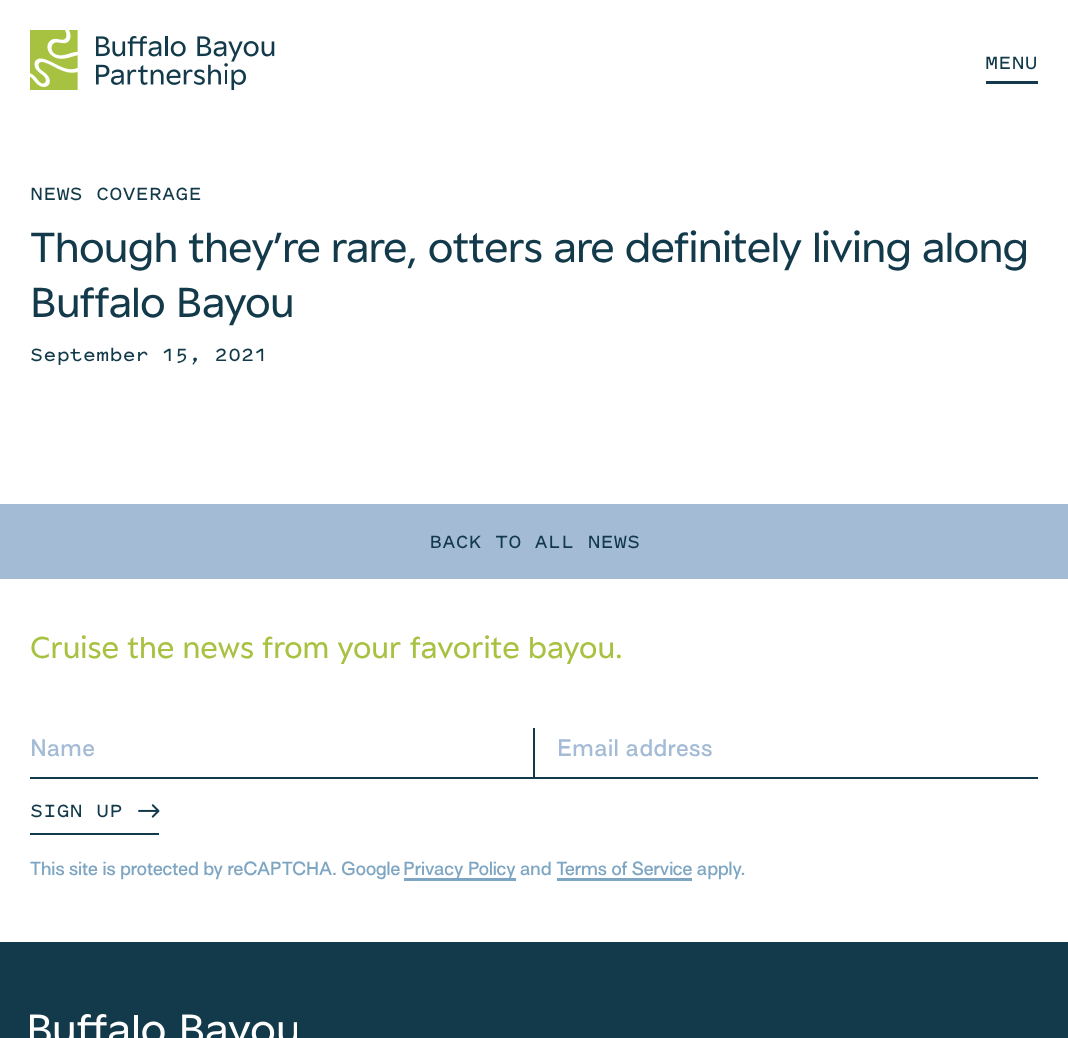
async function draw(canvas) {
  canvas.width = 1068;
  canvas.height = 1038;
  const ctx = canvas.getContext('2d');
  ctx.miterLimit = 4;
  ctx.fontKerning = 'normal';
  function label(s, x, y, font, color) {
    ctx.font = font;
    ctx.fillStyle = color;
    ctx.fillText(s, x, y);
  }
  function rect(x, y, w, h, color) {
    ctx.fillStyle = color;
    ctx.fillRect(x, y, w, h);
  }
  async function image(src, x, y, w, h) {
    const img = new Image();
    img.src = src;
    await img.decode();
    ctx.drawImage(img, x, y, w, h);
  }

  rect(0, 0, 1068, 1038, '#fff');
  await image('assets/img1.png', 30, 30, 48, 60);
  await image('assets/img2.png', 96, 36, 179, 54);
  label('MENU', 985, 69, '600 21.5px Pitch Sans', '#133a4a');
  rect(986, 81, 52, 3, '#133a4a');
  label('NEWS COVERAGE', 30, 200, '600 21.5px Pitch Sans', '#133a4a');
  ctx.letterSpacing = '-0.75px';
  label('Though they’re rare, otters are definitely living along', 30, 262, '45.8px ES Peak', '#133a4a');
  label('Buffalo Bayou', 30, 317, '45.8px ES Peak', '#133a4a');
  ctx.letterSpacing = '0px';
  label('September 15, 2021', 30, 361, '600 21.5px Pitch Sans', '#133a4a');
  rect(0, 504, 1068, 75, '#a4bbd6');
  label('BACK TO ALL NEWS', 429, 548, '600 21.5px Pitch Sans', '#133a4a');
  label('Cruise the news from your', 30, 658, '32.8px ES Peak', '#a7c140');
  label('favorite bayou.', 410, 658, '32.8px ES Peak', '#a7c140');
  rect(30, 777, 1008, 2, '#133a4a');
  rect(533, 728, 2, 49, '#133a4a');
  ctx.letterSpacing = '0.75px';
  label('Name', 30, 756, '22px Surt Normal', '#a4bbd6');
  label('Email address', 557, 756, '22px Surt Normal', '#a4bbd6');
  rect(30, 833, 129, 2, '#133a4a');
  ctx.letterSpacing = '0px';
  label('SIGN UP', 30, 817, '600 21.5px Pitch Sans', '#133a4a');
  await image('assets/img3.png', 138, 804, 22, 14);
  label('This site is protected by reCAPTCHA. Google', 30, 875, '17.6px Surt Normal', '#7ea6c3');
  rect(404, 878, 112, 3, '#7ea6c3');
  label('Privacy Policy and Terms of Service apply.', 403, 875, '17.6px Surt Normal', '#7ea6c3');
  rect(557, 878, 135, 3, '#7ea6c3');
  rect(0, 942, 1068, 96, '#133a4a');
  await image('assets/img4.png', 30, 1014, 267, 24);
}

draw(document.querySelector('canvas'));
